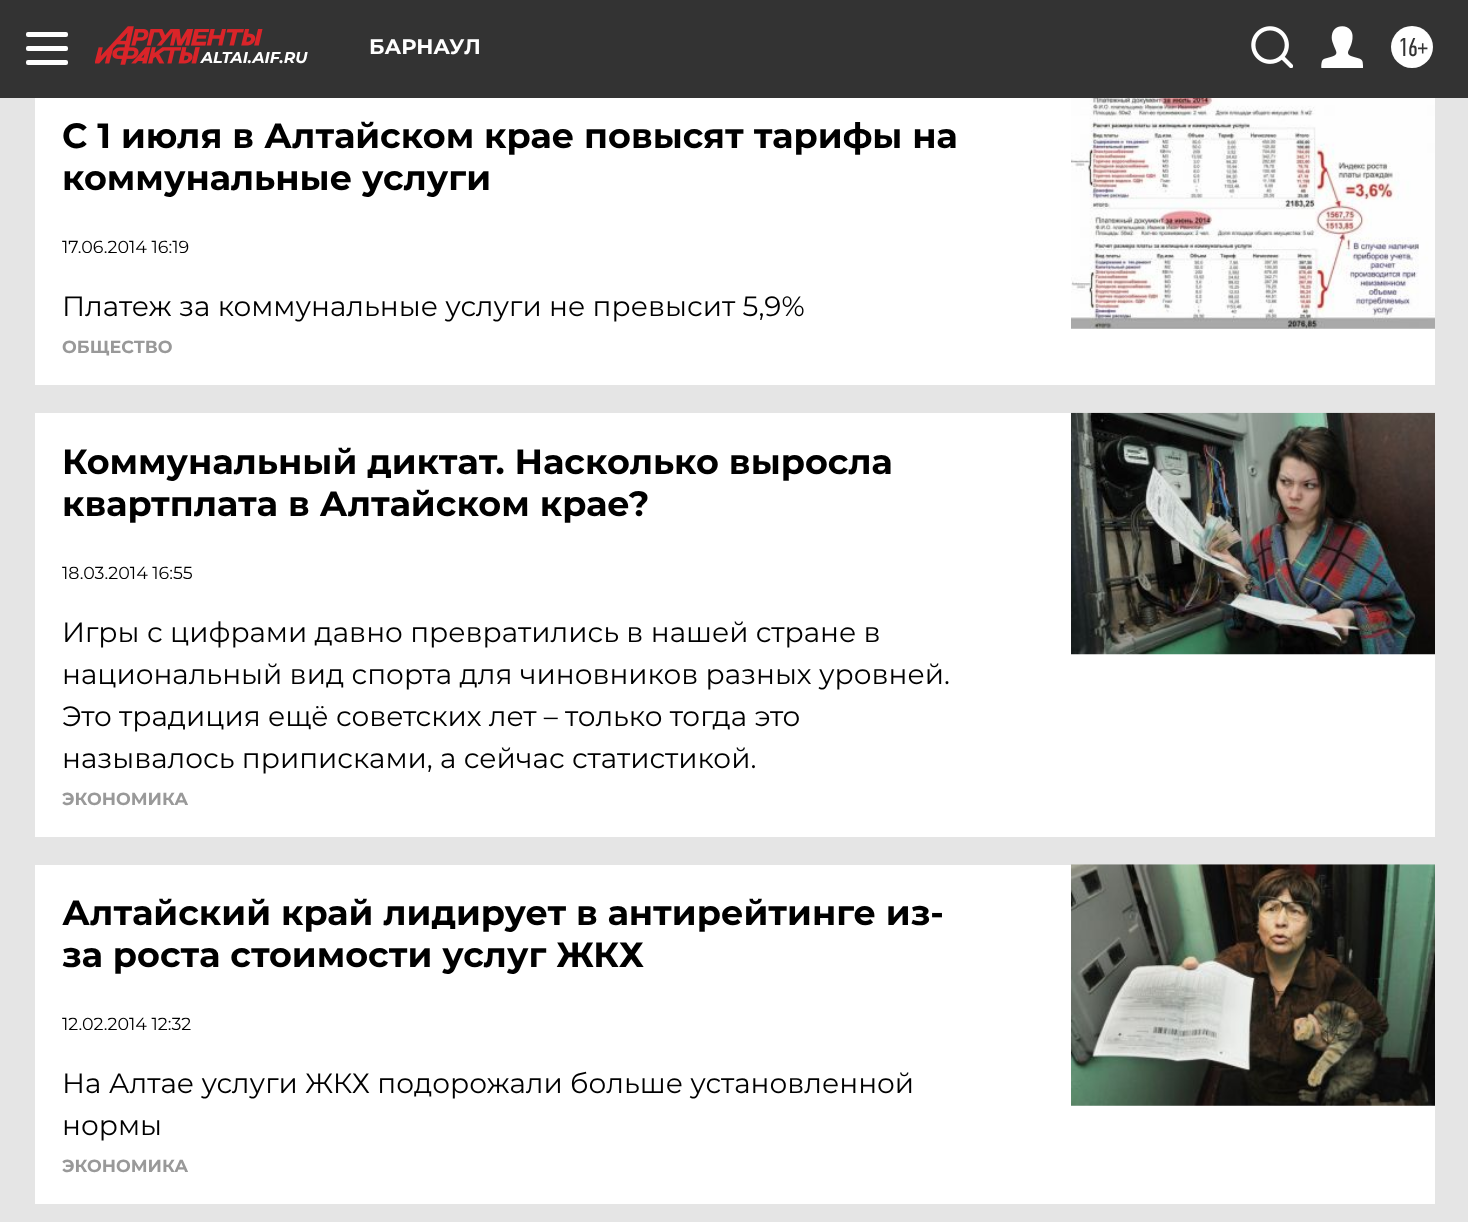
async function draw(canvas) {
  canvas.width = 1468;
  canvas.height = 1222;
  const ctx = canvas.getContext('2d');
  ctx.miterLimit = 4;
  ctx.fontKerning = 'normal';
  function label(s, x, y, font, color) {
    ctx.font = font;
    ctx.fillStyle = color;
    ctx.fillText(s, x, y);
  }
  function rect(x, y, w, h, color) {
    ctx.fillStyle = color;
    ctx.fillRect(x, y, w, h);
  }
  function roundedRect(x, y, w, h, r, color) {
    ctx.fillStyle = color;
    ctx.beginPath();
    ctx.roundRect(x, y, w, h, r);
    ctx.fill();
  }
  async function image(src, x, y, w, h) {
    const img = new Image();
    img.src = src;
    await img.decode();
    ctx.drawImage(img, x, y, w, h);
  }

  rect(0, 0, 1468, 1222, '#e5e5e5');
  rect(0, 0, 1468, 98, '#333');
  roundedRect(26, 32, 42, 5, 2, '#fff');
  roundedRect(26, 46, 42, 5, 2, '#fff');
  roundedRect(26, 60, 42, 5, 2, '#fff');
  label('БАРНАУЛ', 369, 54, 'bold 21px Montserrat', '#fff');
  await image('assets/img1.png', 1251, 26, 42, 42);
  await image('assets/img2.png', 1321, 26, 42, 42);
  ctx.beginPath();
  ctx.arc(1412, 47, 21, 0, 2 * Math.PI);
  ctx.fill();
  label('16+', 1398, 56, '26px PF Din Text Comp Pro', '#333');
  await image('assets/img3.png', 95, 26, 168, 39);
  label('ALTAI.AIF.RU', 201, 63, 'italic bold 15.75px Montserrat', '#fff');
  rect(35, 98, 1400, 287, '#fff');
  label('С 1 июля в Алтайском крае повысят тарифы на', 62, 148, 'bold 35px Montserrat', '#000');
  label('коммунальные услуги', 62, 190, 'bold 35px Montserrat', '#000');
  label('17.06.2014 16:19', 62, 253, '17.5px Montserrat', '#000');
  label('Платеж за коммунальные услуги не превысит 5,9%', 62, 316, '28px Montserrat', '#000');
  await image('assets/img4.png', 1071, 98, 364, 231);
  label('ОБЩЕСТВО', 62, 353, 'bold 17.5px Montserrat', '#999');
  rect(35, 413, 1400, 424, '#fff');
  label('Коммунальный диктат. Насколько выросла', 62, 474, 'bold 35px Montserrat', '#000');
  label('квартплата в Алтайском крае?', 62, 516, 'bold 35px Montserrat', '#000');
  label('18.03.2014 16:55', 62, 579, '17.5px Montserrat', '#000');
  label('Игры с цифрами давно превратились в нашей стране в', 62, 642, '28px Montserrat', '#000');
  label('национальный вид спорта для чиновников разных уровней.', 62, 684, '28px Montserrat', '#000');
  label('Это традиция ещё советских лет – только тогда это', 62, 726, '28px Montserrat', '#000');
  label('называлось приписками, а сейчас статистикой.', 62, 768, '28px Montserrat', '#000');
  await image('assets/img5.png', 1071, 412, 364, 243);
  label('ЭКОНОМИКА', 62, 805, 'bold 17.5px Montserrat', '#999');
  rect(35, 865, 1400, 339, '#fff');
  label('Алтайский край лидирует в антирейтинге из-', 62, 925, 'bold 35px Montserrat', '#000');
  label('за роста стоимости услуг ЖКХ', 62, 967, 'bold 35px Montserrat', '#000');
  label('12.02.2014 12:32', 62, 1030, '17.5px Montserrat', '#000');
  label('На Алтае услуги ЖКХ подорожали больше установленной', 62, 1093, '28px Montserrat', '#000');
  label('нормы', 62, 1135, '28px Montserrat', '#000');
  await image('assets/img6.png', 1071, 864, 364, 242);
  label('ЭКОНОМИКА', 62, 1172, 'bold 17.5px Montserrat', '#999');
}

draw(document.querySelector('canvas'));
